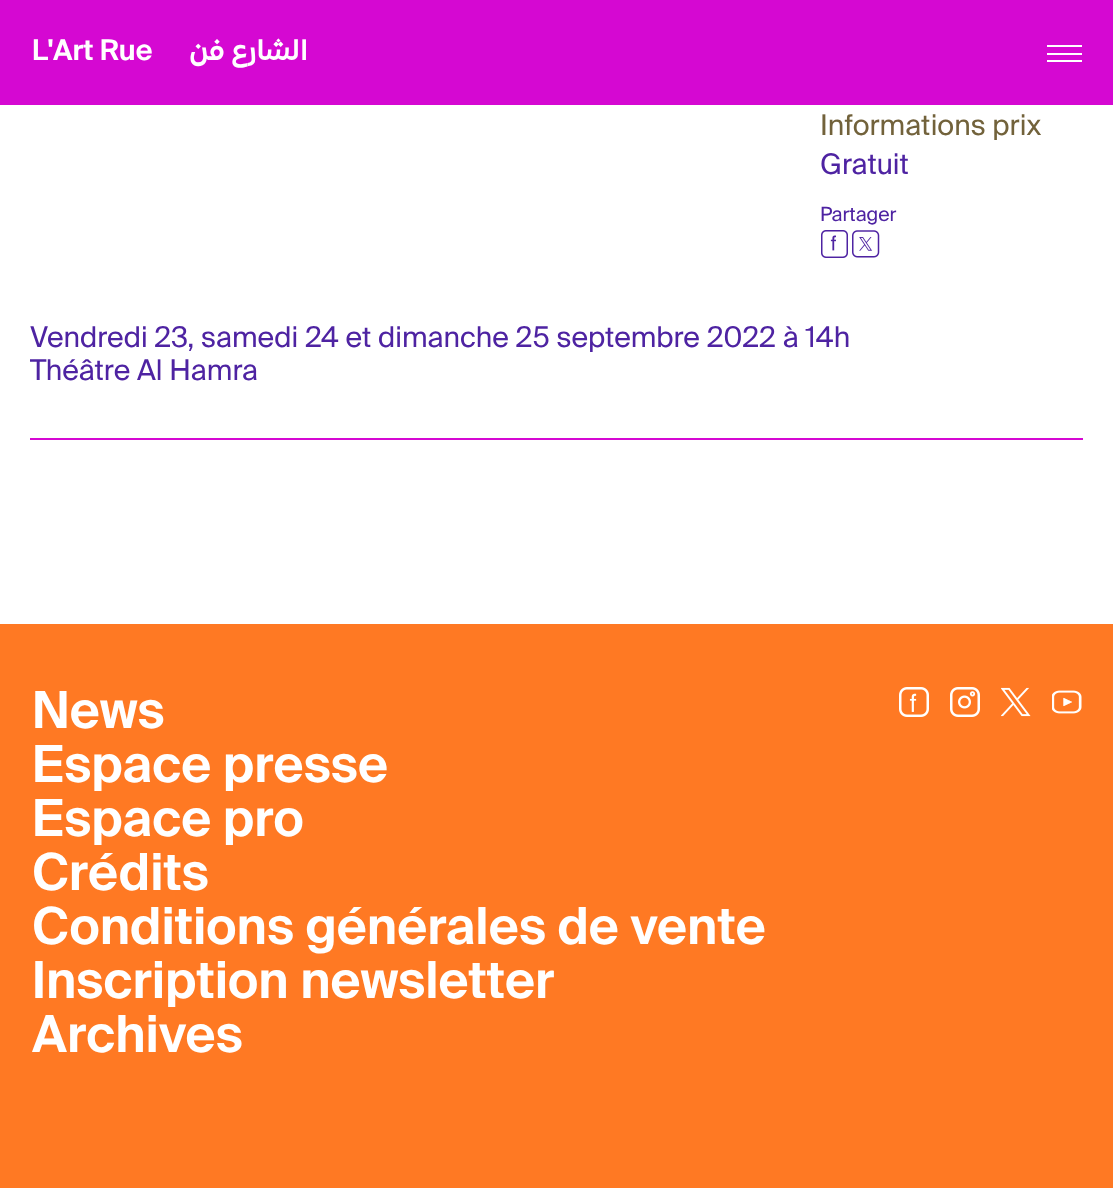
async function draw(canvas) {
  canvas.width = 1113;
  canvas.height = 1188;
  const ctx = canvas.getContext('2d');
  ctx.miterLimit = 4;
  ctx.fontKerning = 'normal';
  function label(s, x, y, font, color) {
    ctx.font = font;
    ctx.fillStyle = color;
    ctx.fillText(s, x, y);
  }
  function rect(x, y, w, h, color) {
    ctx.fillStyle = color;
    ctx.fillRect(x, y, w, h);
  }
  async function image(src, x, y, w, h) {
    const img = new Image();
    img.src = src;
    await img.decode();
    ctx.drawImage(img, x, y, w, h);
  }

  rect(0, 0, 1113, 1188, '#fff');
  rect(0, 0, 1113, 105, '#d508d2');
  label('L\'Art Rue', 32, 60, '600 28.5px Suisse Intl', '#fff');
  ctx.direction = 'rtl';
  label('الشارع فن', 308, 60, '600 28.5px Suisse Intl', '#fff');
  rect(1047, 45, 35, 2, '#fff');
  rect(1047, 53, 35, 2, '#fff');
  rect(1047, 60, 35, 2, '#fff');
  ctx.direction = 'ltr';
  label('Informations prix', 820, 135, '28.5px Suisse Intl', '#72623b');
  label('Gratuit', 820, 174, '28.5px Suisse Intl', '#4e23a2');
  label('Partager', 820, 221, '19.5px Suisse Intl', '#4e23a2');
  await image('assets/img1.png', 821, 230, 27, 28);
  await image('assets/img2.png', 852, 230, 28, 28);
  rect(30, 438, 1053, 2, '#d508d2');
  label('Vendredi 23, samedi 24 et dimanche 25 septembre 2022 à 14h', 30, 347, '28.5px Suisse Intl', '#4e23a2');
  label('Théâtre Al Hamra', 30, 380, '28.5px Suisse Intl', '#4e23a2');
  rect(0, 624, 1113, 564, '#ff7923');
  label('News', 32, 728, '600 51px Suisse Intl', '#fff');
  label('Espace presse', 32, 782, '600 51px Suisse Intl', '#fff');
  label('Espace pro', 32, 836, '600 51px Suisse Intl', '#fff');
  label('Crédits', 32, 890, '600 51px Suisse Intl', '#fff');
  label('Conditions générales de vente', 32, 944, '600 51px Suisse Intl', '#fff');
  label('Inscription newsletter', 32, 998, '600 51px Suisse Intl', '#fff');
  label('Archives', 32, 1052, '600 51px Suisse Intl', '#fff');
  await image('assets/img3.png', 899, 687, 30, 30);
  await image('assets/img4.png', 950, 687, 30, 30);
  await image('assets/img5.png', 1001, 687, 30, 30);
  await image('assets/img6.png', 1052, 690, 30, 24);
}

draw(document.querySelector('canvas'));
